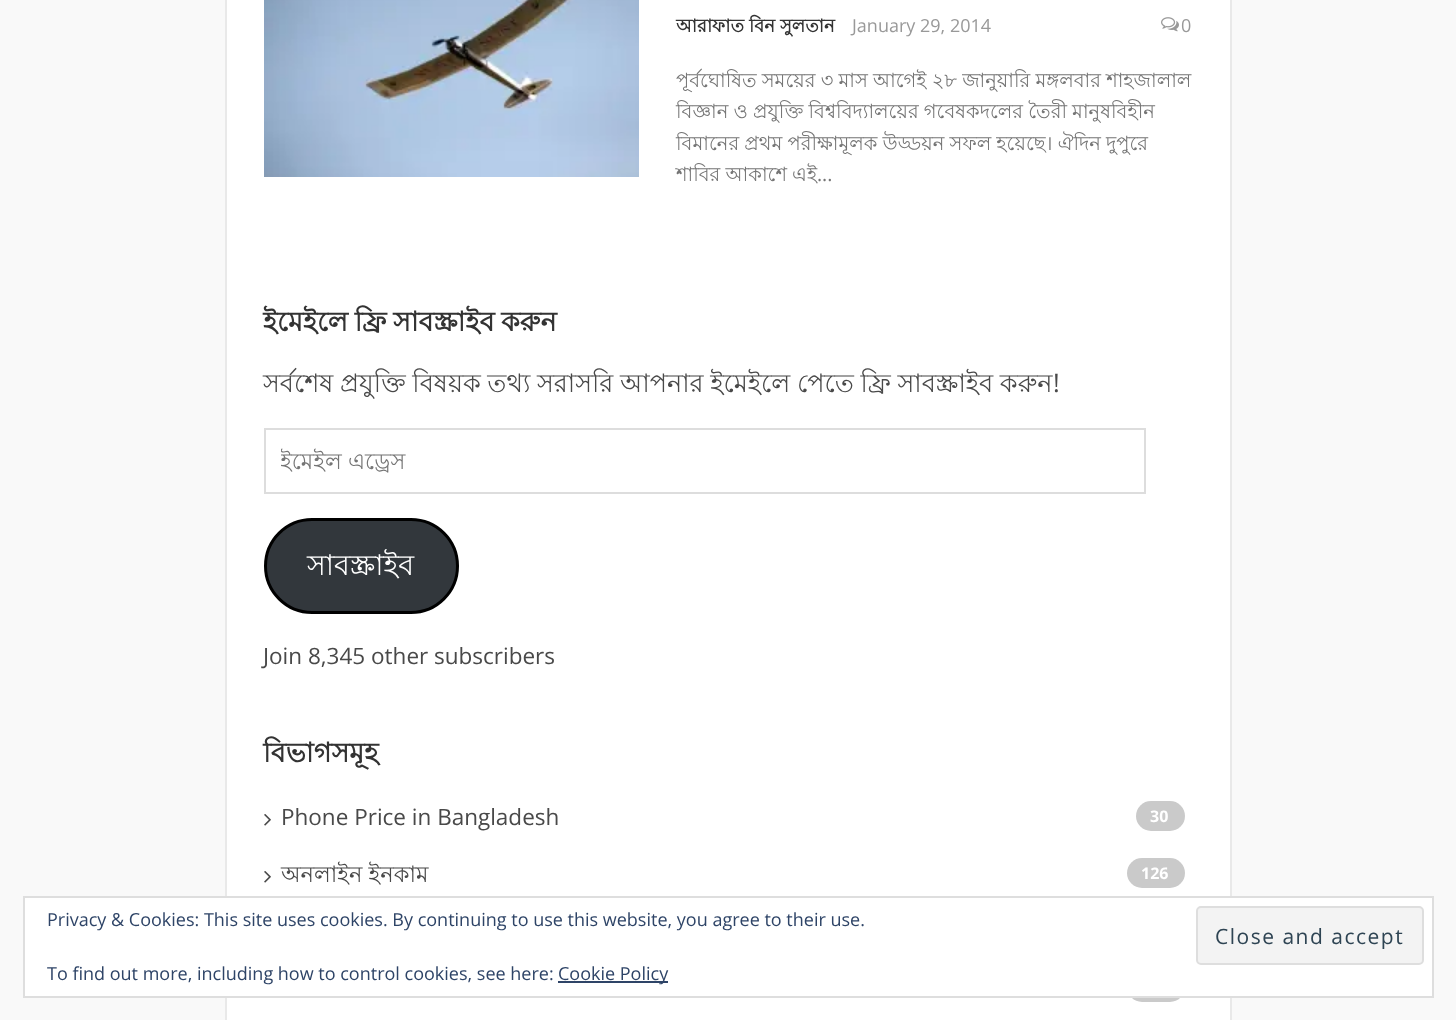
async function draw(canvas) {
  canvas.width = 1456;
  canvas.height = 1020;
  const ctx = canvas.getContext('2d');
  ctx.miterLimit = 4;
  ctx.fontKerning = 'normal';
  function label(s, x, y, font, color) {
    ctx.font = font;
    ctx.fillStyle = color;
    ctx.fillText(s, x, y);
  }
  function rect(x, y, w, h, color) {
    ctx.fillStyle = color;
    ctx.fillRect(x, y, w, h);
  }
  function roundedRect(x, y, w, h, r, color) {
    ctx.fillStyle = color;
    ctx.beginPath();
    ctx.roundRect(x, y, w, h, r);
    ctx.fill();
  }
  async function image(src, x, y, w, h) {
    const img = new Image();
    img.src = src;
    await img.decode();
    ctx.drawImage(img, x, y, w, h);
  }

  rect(0, 0, 1456, 1020, '#f9f9f9');
  ctx.fillStyle = '#fff';
  ctx.beginPath();
  ctx.rect(226, -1, 1005, 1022);
  ctx.fill();
  ctx.strokeStyle = '#e9e9e9';
  ctx.lineWidth = 2;
  ctx.stroke();
  await image('assets/img1.png', 264, 0, 375, 177);
  label('আরাফাত বিন সুলতান', 676, 32, 'bold 18px Lohit Bengali', '#333');
  label('January 29, 2014', 852, 32, '18px Open Sans', '#999');
  await image('assets/img2.png', 1161, 17, 18, 15);
  label('0', 1181, 32, '18px Open Sans', '#999');
  ctx.wordSpacing = '-0.25px';
  label('পূর্বঘোষিত সময়ের ৩ মাস আগেই ২৮ জানুয়ারি মঙ্গলবার শাহজালাল', 676, 87, '19.5px Lohit Bengali', '#757575');
  label('বিজ্ঞান ও প্রযুক্তি বিশ্ববিদ্যালয়ের গবেষকদলের তৈরী মানুষবিহীন', 676, 118, '19.5px Lohit Bengali', '#757575');
  label('বিমানের প্রথম পরীক্ষামূলক উড্ডয়ন সফল হয়েছে। ঐদিন দুপুরে', 676, 150, '19.5px Lohit Bengali', '#757575');
  label('শাবির আকাশে এই', 676, 181, '19.5px Lohit Bengali', '#757575');
  ctx.wordSpacing = '0px';
  label('...', 817, 181, '19.5px Open Sans', '#757575');
  ctx.wordSpacing = '-1px';
  label('ইমেইলে ফ্রি সাবস্ক্রাইব করুন', 263, 331, 'bold 27px Lohit Bengali', '#333');
  ctx.wordSpacing = '-0.5px';
  label('সর্বশেষ প্রযুক্তি বিষয়ক তথ্য সরাসরি আপনার ইমেইলে পেতে ফ্রি সাবস্ক্রাইব করুন', 263, 392, '25.5px Lohit Bengali', '#494949');
  ctx.wordSpacing = '0px';
  label('!', 1053, 392, '25.5px Open Sans', '#494949');
  ctx.strokeStyle = '#ddd';
  ctx.strokeRect(265, 429, 880, 64);
  ctx.save();
  ctx.beginPath();
  ctx.rect(281, 444, 849, 38);
  ctx.clip();
  label('ইমেইল এড্রেস', 280, 469, '22.5px Lohit Bengali', '#757575');
  ctx.restore();
  ctx.fillStyle = '#32373c';
  ctx.beginPath();
  ctx.roundRect(265.5, 519.5, 192, 93, 46.5);
  ctx.fill();
  ctx.strokeStyle = '#000';
  ctx.lineWidth = 3;
  ctx.stroke();
  label('সাবস্ক্রাইব', 307, 575, '28.5px Lohit Bengali', '#fff');
  label('Join 8,345 other subscribers', 263, 664, '22.5px Open Sans', '#494949');
  label('বিভাগসমূহ', 263, 762, 'bold 27px Lohit Bengali', '#333');
  await image('assets/img3.png', 264, 814, 7, 12);
  label('Phone Price in Bangladesh', 281, 825, '22.5px Open Sans', '#494949');
  roundedRect(1136, 801, 49, 30, 15, '#cacaca');
  label('30', 1150, 822, 'bold 16px Open Sans', '#fff');
  await image('assets/img3.png', 264, 871, 7, 12);
  label('অনলাইন ইনকাম', 281, 882, '22.5px Lohit Bengali', '#494949');
  roundedRect(1127, 858, 58, 30, 15, '#cacaca');
  label('126', 1141, 879, 'bold 16px Open Sans', '#fff');
  roundedRect(1127, 972, 58, 30, 15, '#cacaca');
  ctx.fillStyle = '#fff';
  ctx.beginPath();
  ctx.rect(24, 897, 1409, 100);
  ctx.fill();
  ctx.strokeStyle = '#dedede';
  ctx.lineWidth = 2;
  ctx.stroke();
  label('Privacy & Cookies: This site uses cookies. By continuing to use this website, you agree to their use.', 47, 926, '18px Open Sans', '#2e4467');
  ctx.fillStyle = '#f3f3f3';
  ctx.beginPath();
  ctx.roundRect(1197, 907, 226, 57, 4);
  ctx.fill();
  ctx.stroke();
  ctx.letterSpacing = '1.5px';
  label('Close and accept', 1215, 944, '21px Open Sans', '#2e4453');
  ctx.letterSpacing = '0px';
  label('To find out more, including how to control cookies, see here:', 47, 980, '18px Open Sans', '#2e4467');
  rect(558, 981, 110, 2, '#2e4467');
  label('Cookie Policy', 558, 980, '18px Open Sans', '#2e4467');
}

draw(document.querySelector('canvas'));
